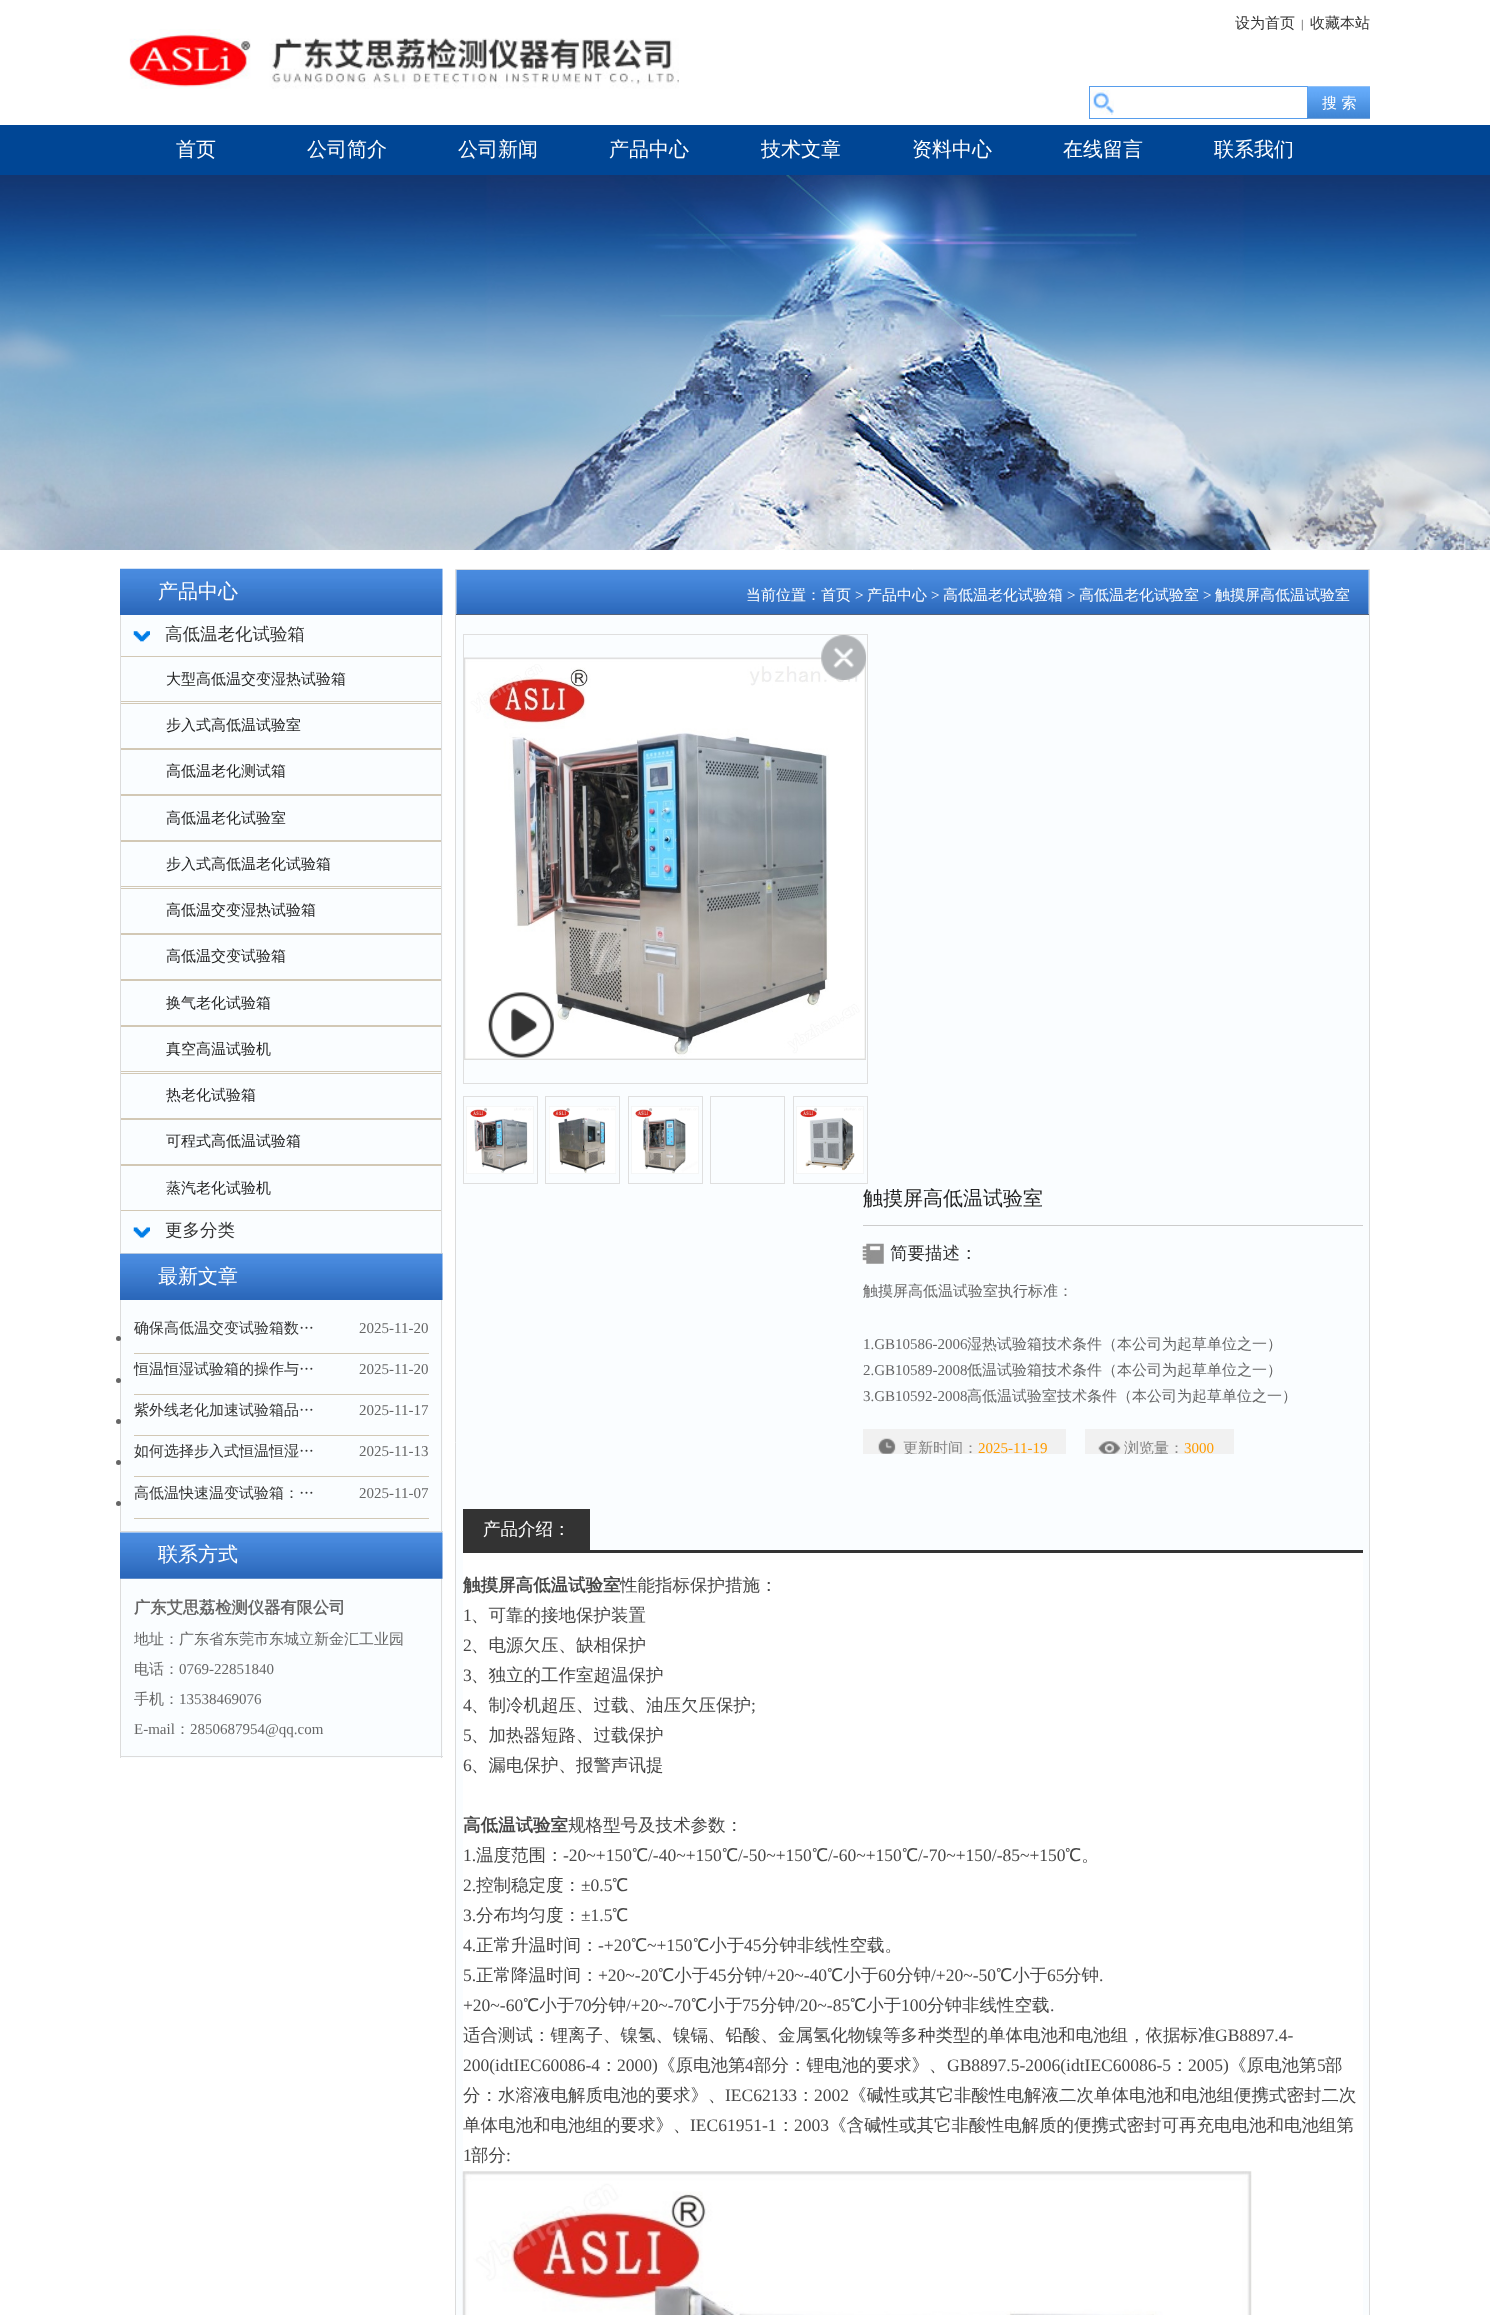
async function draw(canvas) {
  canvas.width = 1490;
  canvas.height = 2315;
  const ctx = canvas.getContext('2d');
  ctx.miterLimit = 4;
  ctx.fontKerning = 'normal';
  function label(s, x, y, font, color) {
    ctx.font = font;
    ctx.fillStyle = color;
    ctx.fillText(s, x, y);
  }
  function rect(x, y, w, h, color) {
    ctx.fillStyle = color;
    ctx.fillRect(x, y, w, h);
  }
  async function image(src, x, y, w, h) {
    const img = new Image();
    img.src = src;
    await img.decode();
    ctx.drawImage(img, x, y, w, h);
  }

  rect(0, 0, 1490, 2315, '#fff');
  label('设为首页', 1235, 28, '500 15px WenQuanYi Zen Hei', '#333');
  label('|', 1301, 28, '12px Liberation Serif', '#333');
  label('收藏本站', 1310, 28, '500 15px WenQuanYi Zen Hei', '#333');
  await image('assets/img1.png', 129, 29, 550, 60);
  await image('assets/img2.png', 1090, 90, 24, 25);
  ctx.strokeStyle = '#579dec';
  ctx.strokeRect(1089.5, 86.5, 218, 32);
  await image('assets/img3.png', 1307, 86, 63, 33);
  label('搜 索', 1322, 108, '500 15px WenQuanYi Zen Hei', '#fff');
  rect(0, 125, 1490, 50, '#004695');
  label('首页', 176, 156, '500 20px WenQuanYi Zen Hei', '#fff');
  label('公司简介', 307, 156, '500 20px WenQuanYi Zen Hei', '#fff');
  label('公司新闻', 458, 156, '500 20px WenQuanYi Zen Hei', '#fff');
  label('产品中心', 609, 156, '500 20px WenQuanYi Zen Hei', '#fff');
  label('技术文章', 761, 156, '500 20px WenQuanYi Zen Hei', '#fff');
  label('资料中心', 912, 156, '500 20px WenQuanYi Zen Hei', '#fff');
  label('在线留言', 1063, 156, '500 20px WenQuanYi Zen Hei', '#fff');
  label('联系我们', 1214, 156, '500 20px WenQuanYi Zen Hei', '#fff');
  await image('assets/img4.png', 0, 175, 1490, 375);
  await image('assets/img5.png', 120, 568, 323, 47);
  label('产品中心', 158, 598, '500 20px WenQuanYi Zen Hei', '#fff');
  rect(121, 615, 322, 638, '#fafdff');
  rect(441, 615, 1, 639, '#dcdcdc');
  rect(120, 1253, 323, 1, '#dcdcdc');
  rect(120, 615, 1, 639, '#dcdcdc');
  await image('assets/img6.png', 133, 631, 17, 11);
  label('高低温老化试验箱', 165, 640, '500 17.5px WenQuanYi Zen Hei', '#333');
  rect(121, 656, 320, 1, '#d2c8b5');
  rect(121, 701, 320, 1, '#d2c8b5');
  label('大型高低温交变湿热试验箱', 166, 684, '500 15px WenQuanYi Zen Hei', '#222');
  rect(121, 703, 320, 1, '#d2c8b5');
  rect(121, 748, 320, 2, '#d2c8b5');
  label('步入式高低温试验室', 166, 730, '500 15px WenQuanYi Zen Hei', '#222');
  rect(121, 794, 320, 2, '#d2c8b5');
  label('高低温老化测试箱', 166, 776, '500 15px WenQuanYi Zen Hei', '#222');
  rect(121, 840, 320, 2, '#d2c8b5');
  label('高低温老化试验室', 166, 823, '500 15px WenQuanYi Zen Hei', '#222');
  rect(121, 886, 320, 1, '#d2c8b5');
  label('步入式高低温老化试验箱', 166, 869, '500 15px WenQuanYi Zen Hei', '#222');
  rect(121, 888, 320, 1, '#d2c8b5');
  rect(121, 933, 320, 2, '#d2c8b5');
  label('高低温交变湿热试验箱', 166, 915, '500 15px WenQuanYi Zen Hei', '#222');
  rect(121, 979, 320, 2, '#d2c8b5');
  label('高低温交变试验箱', 166, 961, '500 15px WenQuanYi Zen Hei', '#222');
  rect(121, 1025, 320, 2, '#d2c8b5');
  label('换气老化试验箱', 166, 1008, '500 15px WenQuanYi Zen Hei', '#222');
  rect(121, 1071, 320, 1, '#d2c8b5');
  label('真空高温试验机', 166, 1054, '500 15px WenQuanYi Zen Hei', '#222');
  rect(121, 1073, 320, 1, '#d2c8b5');
  rect(121, 1118, 320, 2, '#d2c8b5');
  label('热老化试验箱', 166, 1100, '500 15px WenQuanYi Zen Hei', '#222');
  rect(121, 1164, 320, 2, '#d2c8b5');
  label('可程式高低温试验箱', 166, 1146, '500 15px WenQuanYi Zen Hei', '#222');
  rect(121, 1210, 320, 1, '#d2c8b5');
  label('蒸汽老化试验机', 166, 1193, '500 15px WenQuanYi Zen Hei', '#222');
  await image('assets/img7.png', 133, 1227, 17, 11);
  label('更多分类', 165, 1236, '500 17.5px WenQuanYi Zen Hei', '#333');
  await image('assets/img8.png', 120, 1253, 323, 47);
  label('最新文章', 158, 1283, '500 20px WenQuanYi Zen Hei', '#fff');
  rect(121, 1300, 322, 233, '#fafdff');
  rect(441, 1300, 1, 233, '#dcdcdc');
  rect(120, 1531, 323, 1, '#dcdcdc');
  rect(120, 1300, 1, 233, '#dcdcdc');
  rect(134, 1353, 295, 1, '#d2c8b5');
  label('确保高低温交变试验箱数…', 134, 1333, '500 15px WenQuanYi Zen Hei', '#333');
  label('2025-11-20', 359, 1333, '15px Liberation Serif', '#666');
  ctx.beginPath();
  ctx.arc(118.5, 1338.5, 2.5, 0, 2 * Math.PI);
  ctx.fill();
  rect(134, 1394, 295, 1, '#d2c8b5');
  label('恒温恒湿试验箱的操作与…', 134, 1374, '500 15px WenQuanYi Zen Hei', '#333');
  label('2025-11-20', 359, 1374, '15px Liberation Serif', '#666');
  ctx.beginPath();
  ctx.arc(118.5, 1380.5, 2.5, 0, 2 * Math.PI);
  ctx.fill();
  rect(134, 1435, 295, 1, '#d2c8b5');
  label('紫外线老化加速试验箱品…', 134, 1415, '500 15px WenQuanYi Zen Hei', '#333');
  label('2025-11-17', 359, 1415, '15px Liberation Serif', '#666');
  ctx.beginPath();
  ctx.arc(118.5, 1421.5, 2.5, 0, 2 * Math.PI);
  ctx.fill();
  rect(134, 1476, 295, 1, '#d2c8b5');
  label('如何选择步入式恒温恒湿…', 134, 1456, '500 15px WenQuanYi Zen Hei', '#333');
  label('2025-11-13', 359, 1456, '15px Liberation Serif', '#666');
  ctx.beginPath();
  ctx.arc(118.5, 1462.5, 2.5, 0, 2 * Math.PI);
  ctx.fill();
  rect(134, 1518, 295, 1, '#d2c8b5');
  label('高低温快速温变试验箱：…', 134, 1498, '500 15px WenQuanYi Zen Hei', '#333');
  label('2025-11-07', 359, 1498, '15px Liberation Serif', '#666');
  ctx.beginPath();
  ctx.arc(118.5, 1503.5, 2.5, 0, 2 * Math.PI);
  ctx.fill();
  await image('assets/img9.png', 120, 1532, 323, 47);
  ctx.save();
  ctx.beginPath();
  ctx.rect(158, 1533, 285, 43);
  ctx.clip();
  label('联系方式', 158, 1561, '500 20px WenQuanYi Zen Hei', '#fff');
  ctx.restore();
  rect(121, 1579, 322, 179, '#fafdff');
  rect(441, 1579, 1, 179, '#dcdcdc');
  rect(120, 1756, 323, 1, '#dcdcdc');
  rect(120, 1579, 1, 179, '#dcdcdc');
  label('广东艾思荔检测仪器有限公司', 134, 1613, 'bold 16.25px WenQuanYi Zen Hei', '#666');
  label('地址：广东省东莞市东城立新金汇工业园', 134, 1644, '500 15px WenQuanYi Zen Hei', '#666');
  label('电话：', 134, 1674, '500 15px WenQuanYi Zen Hei', '#666');
  label('0769-22851840', 179, 1674, '15px Liberation Serif', '#666');
  label('手机：', 134, 1704, '500 15px WenQuanYi Zen Hei', '#666');
  label('13538469076', 179, 1704, '15px Liberation Serif', '#666');
  label('E-mail', 134, 1734, '15px Liberation Serif', '#666');
  label('：', 175, 1734, '500 15px WenQuanYi Zen Hei', '#666');
  label('2850687954@qq.com', 190, 1734, '15px Liberation Serif', '#666');
  ctx.fillStyle = '#fafdff';
  ctx.beginPath();
  ctx.rect(455.5, 569.5, 914, 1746);
  ctx.fill();
  ctx.strokeStyle = '#dcdcdc';
  ctx.stroke();
  await image('assets/img10.png', 456, 570, 913, 44);
  rect(456, 614, 913, 1, '#556177');
  label('当前位置：首页', 746, 600, '500 15px WenQuanYi Zen Hei', '#fff');
  label('>', 855, 600, '15px Liberation Serif', '#fff');
  label('产品中心', 867, 600, '500 15px WenQuanYi Zen Hei', '#fff');
  label('>', 931, 600, '15px Liberation Serif', '#fff');
  label('高低温老化试验箱', 943, 600, '500 15px WenQuanYi Zen Hei', '#fff');
  label('>', 1067, 600, '15px Liberation Serif', '#fff');
  label('高低温老化试验室', 1079, 600, '500 15px WenQuanYi Zen Hei', '#fff');
  label('>', 1203, 600, '15px Liberation Serif', '#fff');
  label('触摸屏高低温试验室', 1215, 600, '500 15px WenQuanYi Zen Hei', '#fff');
  ctx.strokeStyle = '#dfdfdf';
  ctx.strokeRect(463.5, 634.5, 404, 449);
  await image('assets/img12.png', 464, 657, 402, 403);
  await image('assets/img11.png', 821, 635, 46, 45);
  await image('assets/img13.png', 488, 992, 66, 66);
  ctx.strokeRect(463.5, 1096.5, 74, 87);
  await image('assets/img14.png', 466, 1106, 68, 68);
  ctx.strokeRect(545.5, 1096.5, 74, 87);
  await image('assets/img15.png', 549, 1106, 67, 68);
  ctx.strokeRect(628.5, 1096.5, 74, 87);
  await image('assets/img16.png', 631, 1106, 68, 68);
  ctx.strokeRect(710.5, 1096.5, 74, 87);
  ctx.strokeRect(793.5, 1096.5, 74, 87);
  await image('assets/img17.png', 796, 1106, 68, 68);
  rect(863, 1225, 500, 1, '#ccc');
  label('触摸屏高低温试验室', 863, 1205, '500 20px WenQuanYi Zen Hei', '#222');
  await image('assets/img18.png', 862, 1243, 22, 21);
  label('简要描述：', 890, 1259, '500 17.5px WenQuanYi Zen Hei', '#333');
  label('触摸屏高低温试验室执行标准：', 863, 1296, '500 15px WenQuanYi Zen Hei', '#666');
  label('1.GB10586-2006', 863, 1349, '15px Liberation Serif', '#666');
  label('湿热试验箱技术条件（本公司为起草单位之一）', 967, 1349, '500 15px WenQuanYi Zen Hei', '#666');
  label('2.GB10589-2008', 863, 1375, '15px Liberation Serif', '#666');
  label('低温试验箱技术条件（本公司为起草单位之一）', 967, 1375, '500 15px WenQuanYi Zen Hei', '#666');
  label('3.GB10592-2008', 863, 1401, '15px Liberation Serif', '#666');
  label('高低温试验室技术条件（本公司为起草单位之一）', 967, 1401, '500 15px WenQuanYi Zen Hei', '#666');
  rect(863, 1429, 203, 25, '#f1f1f1');
  await image('assets/img19.png', 878, 1438, 18, 16);
  ctx.save();
  ctx.beginPath();
  ctx.rect(863, 1429, 500, 25);
  ctx.clip();
  label('更新时间：', 903, 1453, '500 15px WenQuanYi Zen Hei', '#828282');
  ctx.restore();
  label('2025-11-19', 978, 1453, '15px Liberation Serif', '#ff9c00');
  rect(1085, 1429, 149, 25, '#f1f1f1');
  await image('assets/img20.png', 1098, 1441, 23, 13);
  ctx.save();
  ctx.beginPath();
  ctx.rect(863, 1429, 500, 25);
  ctx.clip();
  label('浏览量：', 1124, 1453, '500 15px WenQuanYi Zen Hei', '#828282');
  ctx.restore();
  label('3000', 1184, 1453, '15px Liberation Serif', '#ff9c00');
  rect(463, 1550, 900, 3, '#333');
  rect(463, 1509, 127, 41, '#333');
  label('产品介绍：', 483, 1535, '500 17.5px WenQuanYi Zen Hei', '#fff');
  rect(463, 1553, 900, 762, '#fff');
  label('触摸屏高低温试验室', 463, 1591, 'bold 17.5px WenQuanYi Zen Hei', '#474747');
  label('性能指标保护措施：', 620, 1591, '500 17.5px WenQuanYi Zen Hei', '#474747');
  label('1', 463, 1621, '17.5px Liberation Serif', '#474747');
  label('、可靠的接地保护装置', 471, 1621, '500 17.5px WenQuanYi Zen Hei', '#474747');
  label('2', 463, 1651, '17.5px Liberation Serif', '#474747');
  label('、电源欠压、缺相保护', 471, 1651, '500 17.5px WenQuanYi Zen Hei', '#474747');
  label('3', 463, 1681, '17.5px Liberation Serif', '#474747');
  label('、独立的工作室超温保护', 471, 1681, '500 17.5px WenQuanYi Zen Hei', '#474747');
  label('4', 463, 1711, '17.5px Liberation Serif', '#474747');
  label('、制冷机超压、过载、油压欠压保护', 471, 1711, '500 17.5px WenQuanYi Zen Hei', '#474747');
  label(';', 751, 1711, '17.5px Liberation Serif', '#474747');
  label('5', 463, 1741, '17.5px Liberation Serif', '#474747');
  label('、加热器短路、过载保护', 471, 1741, '500 17.5px WenQuanYi Zen Hei', '#474747');
  label('6', 463, 1771, '17.5px Liberation Serif', '#474747');
  label('、漏电保护、报警声讯提', 471, 1771, '500 17.5px WenQuanYi Zen Hei', '#474747');
  label('高低温试验室', 463, 1831, 'bold 17.5px WenQuanYi Zen Hei', '#474747');
  label('规格型号及技术参数：', 568, 1831, '500 17.5px WenQuanYi Zen Hei', '#474747');
  label('1.', 463, 1861, '17.5px Liberation Serif', '#474747');
  label('温度范围：', 476, 1861, '500 17.5px WenQuanYi Zen Hei', '#474747');
  label('-20~+150', 563, 1861, '17.5px Liberation Serif', '#474747');
  label('℃', 632, 1861, '500 17.5px WenQuanYi Zen Hei', '#474747');
  label('/-40~+150', 648, 1861, '17.5px Liberation Serif', '#474747');
  label('℃', 722, 1861, '500 17.5px WenQuanYi Zen Hei', '#474747');
  label('/-50~+150', 738, 1861, '17.5px Liberation Serif', '#474747');
  label('℃', 812, 1861, '500 17.5px WenQuanYi Zen Hei', '#474747');
  label('/-60~+150', 828, 1861, '17.5px Liberation Serif', '#474747');
  label('℃', 902, 1861, '500 17.5px WenQuanYi Zen Hei', '#474747');
  label('/-70~+150/-85~+150', 918, 1861, '17.5px Liberation Serif', '#474747');
  label('℃。', 1065, 1861, '500 17.5px WenQuanYi Zen Hei', '#474747');
  label('2.', 463, 1891, '17.5px Liberation Serif', '#474747');
  label('控制稳定度：', 476, 1891, '500 17.5px WenQuanYi Zen Hei', '#474747');
  label('±0.5', 581, 1891, '17.5px Liberation Serif', '#474747');
  label('℃', 612, 1891, '500 17.5px WenQuanYi Zen Hei', '#474747');
  label('3.', 463, 1921, '17.5px Liberation Serif', '#474747');
  label('分布均匀度：', 476, 1921, '500 17.5px WenQuanYi Zen Hei', '#474747');
  label('±1.5', 581, 1921, '17.5px Liberation Serif', '#474747');
  label('℃', 612, 1921, '500 17.5px WenQuanYi Zen Hei', '#474747');
  label('4.', 463, 1951, '17.5px Liberation Serif', '#474747');
  label('正常升温时间：', 476, 1951, '500 17.5px WenQuanYi Zen Hei', '#474747');
  label('-+20', 598, 1951, '17.5px Liberation Serif', '#474747');
  label('℃', 631, 1951, '500 17.5px WenQuanYi Zen Hei', '#474747');
  label('~+150', 647, 1951, '17.5px Liberation Serif', '#474747');
  label('℃小于', 693, 1951, '500 17.5px WenQuanYi Zen Hei', '#474747');
  label('45', 744, 1951, '17.5px Liberation Serif', '#474747');
  label('分钟非线性空载。', 762, 1951, '500 17.5px WenQuanYi Zen Hei', '#474747');
  label('5.', 463, 1981, '17.5px Liberation Serif', '#474747');
  label('正常降温时间：', 476, 1981, '500 17.5px WenQuanYi Zen Hei', '#474747');
  label('+20~-20', 598, 1981, '17.5px Liberation Serif', '#474747');
  label('℃小于', 658, 1981, '500 17.5px WenQuanYi Zen Hei', '#474747');
  label('45', 709, 1981, '17.5px Liberation Serif', '#474747');
  label('分钟', 727, 1981, '500 17.5px WenQuanYi Zen Hei', '#474747');
  label('/+20~-40', 762, 1981, '17.5px Liberation Serif', '#474747');
  label('℃小于', 827, 1981, '500 17.5px WenQuanYi Zen Hei', '#474747');
  label('60', 878, 1981, '17.5px Liberation Serif', '#474747');
  label('分钟', 896, 1981, '500 17.5px WenQuanYi Zen Hei', '#474747');
  label('/+20~-50', 931, 1981, '17.5px Liberation Serif', '#474747');
  label('℃小于', 996, 1981, '500 17.5px WenQuanYi Zen Hei', '#474747');
  label('65', 1047, 1981, '17.5px Liberation Serif', '#474747');
  label('分钟', 1064, 1981, '500 17.5px WenQuanYi Zen Hei', '#474747');
  label('.', 1099, 1981, '17.5px Liberation Serif', '#474747');
  label('+20~-60', 463, 2011, '17.5px Liberation Serif', '#474747');
  label('℃小于', 523, 2011, '500 17.5px WenQuanYi Zen Hei', '#474747');
  label('70', 574, 2011, '17.5px Liberation Serif', '#474747');
  label('分钟', 591, 2011, '500 17.5px WenQuanYi Zen Hei', '#474747');
  label('/+20~-70', 626, 2011, '17.5px Liberation Serif', '#474747');
  label('℃小于', 691, 2011, '500 17.5px WenQuanYi Zen Hei', '#474747');
  label('75', 742, 2011, '17.5px Liberation Serif', '#474747');
  label('分钟', 760, 2011, '500 17.5px WenQuanYi Zen Hei', '#474747');
  label('/20~-85', 795, 2011, '17.5px Liberation Serif', '#474747');
  label('℃小于', 850, 2011, '500 17.5px WenQuanYi Zen Hei', '#474747');
  label('100', 901, 2011, '17.5px Liberation Serif', '#474747');
  label('分钟非线性空载', 927, 2011, '500 17.5px WenQuanYi Zen Hei', '#474747');
  label('.', 1050, 2011, '17.5px Liberation Serif', '#474747');
  label('适合测试：锂离子、镍氢、镍镉、铅酸、金属氢化物镍等多种类型的单体电池和电池组，依据标准', 463, 2041, '500 17.5px WenQuanYi Zen Hei', '#474747');
  label('GB8897.4-', 1215, 2041, '17.5px Liberation Serif', '#474747');
  label('200(idtIEC60086-4', 463, 2071, '17.5px Liberation Serif', '#474747');
  label('：', 600, 2071, '500 17.5px WenQuanYi Zen Hei', '#474747');
  label('2000)', 617, 2071, '17.5px Liberation Serif', '#474747');
  label('《原电池第', 658, 2071, '500 17.5px WenQuanYi Zen Hei', '#474747');
  label('4', 745, 2071, '17.5px Liberation Serif', '#474747');
  label('部分：锂电池的要求》、', 754, 2071, '500 17.5px WenQuanYi Zen Hei', '#474747');
  label('GB8897.5-2006(idtIEC60086-5', 947, 2071, '17.5px Liberation Serif', '#474747');
  label('：', 1171, 2071, '500 17.5px WenQuanYi Zen Hei', '#474747');
  label('2005)', 1188, 2071, '17.5px Liberation Serif', '#474747');
  label('《原电池第', 1229, 2071, '500 17.5px WenQuanYi Zen Hei', '#474747');
  label('5', 1317, 2071, '17.5px Liberation Serif', '#474747');
  label('部', 1325, 2071, '500 17.5px WenQuanYi Zen Hei', '#474747');
  label('分：水溶液电解质电池的要求》、', 463, 2101, '500 17.5px WenQuanYi Zen Hei', '#474747');
  label('IEC62133', 725, 2101, '17.5px Liberation Serif', '#474747');
  label('：', 797, 2101, '500 17.5px WenQuanYi Zen Hei', '#474747');
  label('2002', 814, 2101, '17.5px Liberation Serif', '#474747');
  label('《碱性或其它非酸性电解液二次单体电池和电池组便携式密封二次', 849, 2101, '500 17.5px WenQuanYi Zen Hei', '#474747');
  label('单体电池和电池组的要求》、', 463, 2131, '500 17.5px WenQuanYi Zen Hei', '#474747');
  label('IEC61951-1', 690, 2131, '17.5px Liberation Serif', '#474747');
  label('：', 777, 2131, '500 17.5px WenQuanYi Zen Hei', '#474747');
  label('2003', 794, 2131, '17.5px Liberation Serif', '#474747');
  label('《含碱性或其它非酸性电解质的便携式密封可再充电电池和电池组第', 829, 2131, '500 17.5px WenQuanYi Zen Hei', '#474747');
  label('1', 463, 2161, '17.5px Liberation Serif', '#474747');
  label('部分', 471, 2161, '500 17.5px WenQuanYi Zen Hei', '#474747');
  label(':', 506, 2161, '17.5px Liberation Serif', '#474747');
  await image('assets/img21.png', 462, 2171, 790, 144);
}

draw(document.querySelector('canvas'));
